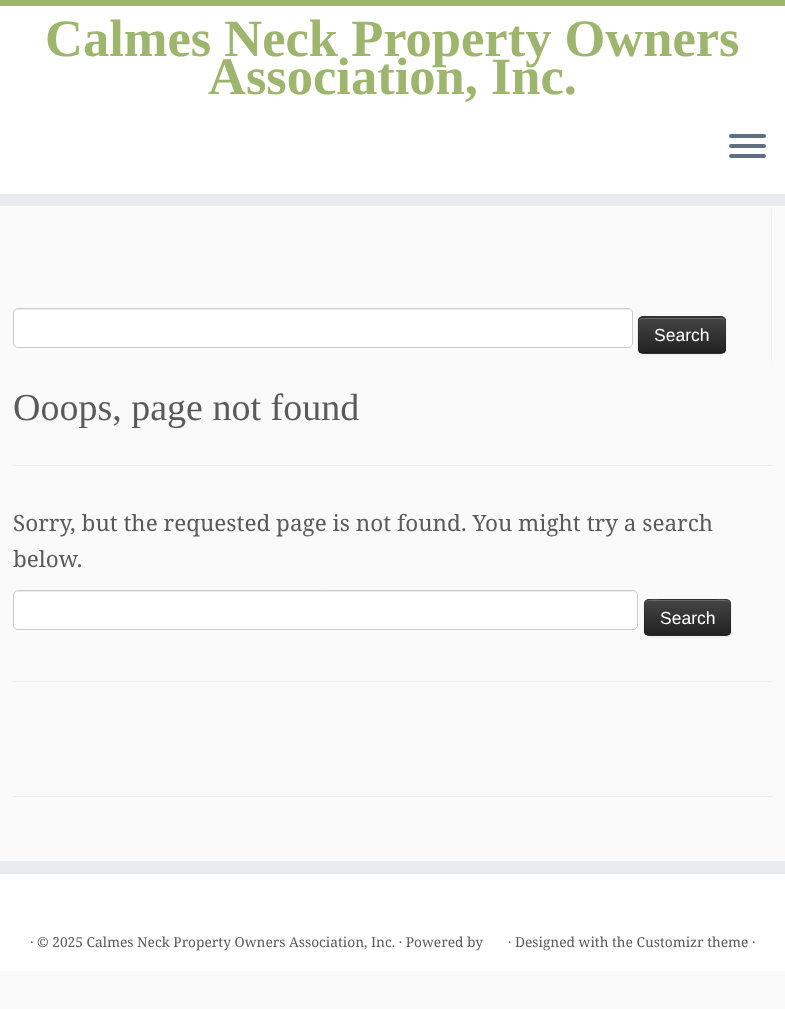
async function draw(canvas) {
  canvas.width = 785;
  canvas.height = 1009;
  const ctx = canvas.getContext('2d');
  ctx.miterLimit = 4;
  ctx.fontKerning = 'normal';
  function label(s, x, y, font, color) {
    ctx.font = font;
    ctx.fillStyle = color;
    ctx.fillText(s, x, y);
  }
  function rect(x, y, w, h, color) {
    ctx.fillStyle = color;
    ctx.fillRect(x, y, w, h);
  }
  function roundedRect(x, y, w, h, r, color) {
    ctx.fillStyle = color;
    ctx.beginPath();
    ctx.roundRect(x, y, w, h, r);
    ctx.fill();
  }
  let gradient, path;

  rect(0, 0, 785, 1009, '#fafafa');
  rect(0, 6, 785, 188, '#fff');
  rect(0, 0, 785, 6, '#9db668');
  rect(0, 194, 785, 12, '#e9eaee');
  label('Calmes Neck Property Owners', 45, 56, 'bold 52.5px Liberation Serif', '#9db56c');
  label('Association, Inc.', 208, 94, 'bold 52.5px Liberation Serif', '#9db56c');
  roundedRect(729, 134, 37, 4, 2, '#5f6f81');
  roundedRect(729, 144, 37, 4, 2, '#5f6f81');
  roundedRect(729, 154, 37, 4, 2, '#5f6f81');
  rect(771, 209, 1, 152, '#eee');
  roundedRect(13, 308, 620, 40, 5, '#fff');
  ctx.fillStyle = '#ececec';
  path = new Path2D('M18 310H628C630 310 631 312 631 314V313C631 311 629 309 627 309H18C16 309 14 311 14 313V314C14 312 15 310 18 310Z');
  ctx.fill(path);
  ctx.beginPath();
  ctx.roundRect(13.5, 308.5, 619, 39, 4.5);
  ctx.strokeStyle = '#ccc';
  ctx.stroke();
  ctx.fillStyle = '#0000000d';
  ctx.filter = 'blur(1px)';
  ctx.beginPath();
  ctx.roundRect(638, 318, 88, 37, 5);
  ctx.fill();
  ctx.filter = 'none';
  roundedRect(638, 316, 88, 38, 5, '#363636');
  ctx.save();
  ctx.beginPath();
  ctx.roundRect(638, 316, 88, 38, 5);
  ctx.clip();
  gradient = ctx.createLinearGradient(682, 318, 682, 353);
  gradient.addColorStop(0, '#444');
  gradient.addColorStop(1, '#222');
  ctx.fillStyle = gradient;
  ctx.fillRect(638, 318, 88, 35);
  ctx.restore();
  ctx.fillStyle = '#696969';
  path = new Path2D('M642 319H721C723 319 725 320 725 322C725 320 723 318 721 318H643C642 318 640 319 640 320Z');
  ctx.fill(path);
  path = new Path2D('M724.5 352L721.5 353H642L639.5 352');
  ctx.strokeStyle = '#00000040';
  ctx.lineWidth = 1.2;
  ctx.stroke(path);
  path = new Path2D('M639.5 352C637.5 350 638 346.5 638 344V335C638 314.5 635 317 655.5 317H708C728.5 317 725.5 314.5 725.5 335V344C725.5 346.5 726.5 350 724.5 352');
  ctx.strokeStyle = '#0000001a';
  ctx.stroke(path);
  label('Search', 654, 341, '17.5px Liberation Sans', '#fff');
  rect(773, 209, 1, 152, '#fff');
  label('Ooops, page not found', 13, 420, '38px Liberation Serif', '#5a5a5a');
  rect(13, 465, 760, 1, '#eee');
  rect(13, 466, 760, 1, '#fff');
  label('Sorry, but the requested page is not found. You might try a search', 13, 531, '22.5px Noto Serif', '#5a5a5a');
  label('below.', 13, 567, '22.5px Noto Serif', '#5a5a5a');
  roundedRect(13, 590, 625, 40, 5, '#fff');
  ctx.fillStyle = '#ececec';
  path = new Path2D('M18 592H632C635 592 636 594 636 596V595C636 593 634 591 632 591H18C16 591 14 593 14 595V596C14 594 15 592 18 592Z');
  ctx.fill(path);
  ctx.beginPath();
  ctx.roundRect(13.5, 590.5, 624, 39, 4.5);
  ctx.strokeStyle = '#ccc';
  ctx.lineWidth = 1;
  ctx.stroke();
  ctx.fillStyle = '#0000000d';
  ctx.filter = 'blur(1px)';
  ctx.beginPath();
  ctx.roundRect(644, 600, 87, 38, 5);
  ctx.fill();
  ctx.filter = 'none';
  roundedRect(644, 599, 87, 37, 5, '#363636');
  ctx.save();
  ctx.beginPath();
  ctx.roundRect(644, 599, 87, 37, 5);
  ctx.clip();
  gradient = ctx.createLinearGradient(688, 600, 688, 635);
  gradient.addColorStop(0, '#444');
  gradient.addColorStop(1, '#222');
  ctx.fillStyle = gradient;
  ctx.fillRect(644, 600, 87, 35);
  ctx.restore();
  ctx.fillStyle = '#ffffff33';
  path = new Path2D('M649 601H726C728 601 730 603 730 605C730 597 718 600 713 600H662C657 600 645 597 645 605C645 603 647 601 649 601Z');
  ctx.fill(path);
  path = new Path2D('M729.5 634.5L726.5 635.5H648.5L645.5 634.5');
  ctx.strokeStyle = '#00000040';
  ctx.lineWidth = 1.2;
  ctx.stroke(path);
  path = new Path2D('M645.5 634.5C643.5 632.5 644.5 629 644.5 626.5V617.5C644.5 597.5 641.5 599.5 661.5 599.5H713.5C733.5 599.5 730.5 597.5 730.5 617.5V626.5C730.5 629 731.5 632.5 729.5 634.5');
  ctx.strokeStyle = '#0000001a';
  ctx.stroke(path);
  label('Search', 660, 624, '17.5px Liberation Sans', '#fff');
  rect(13, 681, 760, 1, '#eee');
  rect(13, 683, 760, 1, '#fff');
  rect(13, 796, 760, 1, '#eee');
  rect(13, 798, 760, 1, '#fff');
  rect(0, 861, 785, 13, '#e9eaee');
  rect(0, 874, 785, 97, '#fff');
  label('· © 2025 Calmes Neck Property Owners Association, Inc. · Powered by', 30, 947, '13.75px Noto Serif', '#5a5a5a');
  label('· Designed with the Customizr theme ·', 508, 947, '13.75px Noto Serif', '#5a5a5a');
}

draw(document.querySelector('canvas'));
